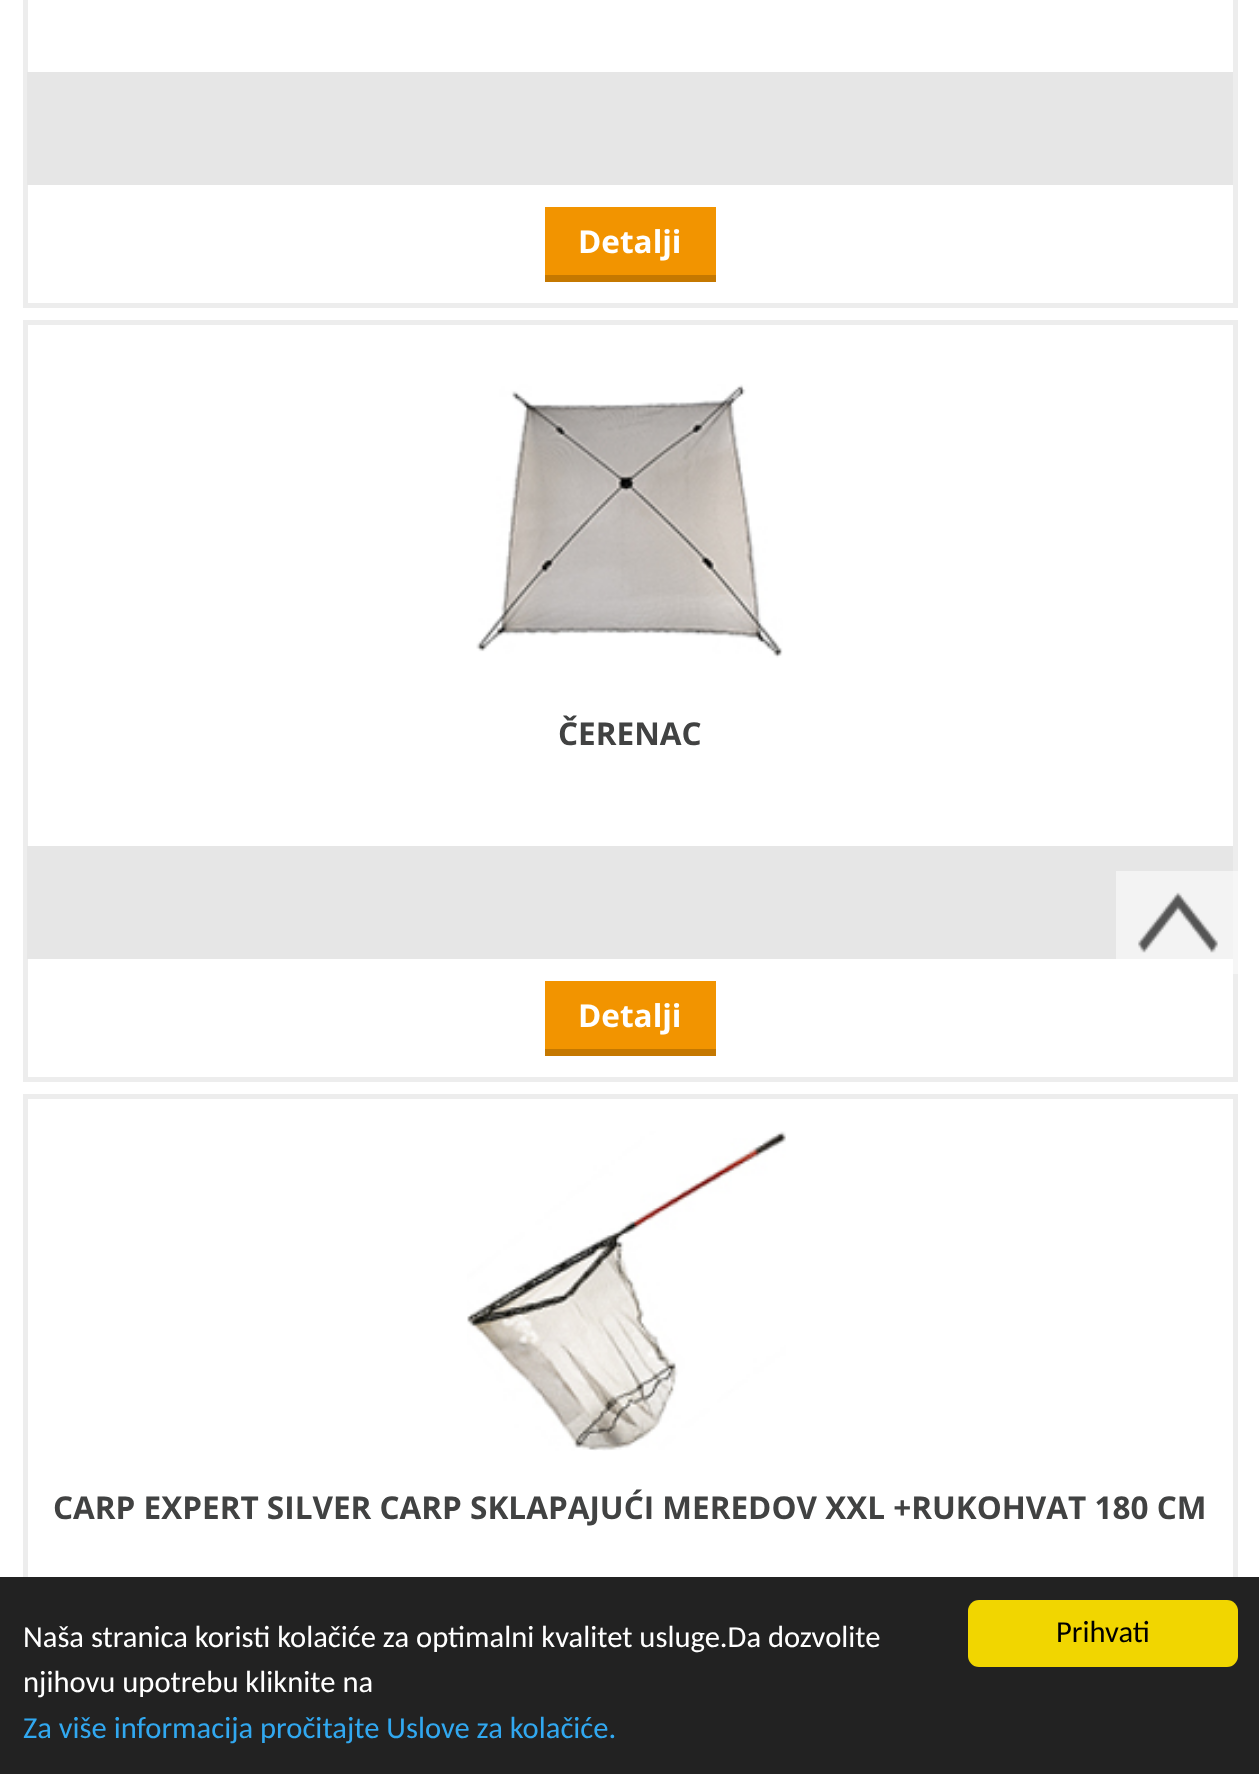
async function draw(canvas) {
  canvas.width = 1259;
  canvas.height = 1774;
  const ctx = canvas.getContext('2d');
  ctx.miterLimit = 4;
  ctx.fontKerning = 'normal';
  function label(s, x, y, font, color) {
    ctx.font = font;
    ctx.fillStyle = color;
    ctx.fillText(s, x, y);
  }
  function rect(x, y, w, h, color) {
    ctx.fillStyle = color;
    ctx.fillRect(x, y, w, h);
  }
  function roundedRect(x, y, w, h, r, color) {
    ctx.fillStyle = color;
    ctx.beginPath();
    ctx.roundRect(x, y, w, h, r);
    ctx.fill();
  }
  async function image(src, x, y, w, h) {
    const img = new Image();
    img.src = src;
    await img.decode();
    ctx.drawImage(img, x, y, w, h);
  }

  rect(0, 0, 1259, 1774, '#fff');
  ctx.strokeStyle = '#ededed';
  ctx.lineWidth = 5;
  ctx.strokeRect(25.5, -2.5, 1210, 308);
  rect(27, 72, 1206, 113, '#e6e6e6');
  rect(545, 207, 171, 68, '#f29400');
  rect(545, 275, 171, 7, '#c57800');
  label('Detalji', 578, 253, 'bold 31.5px Open Sans', '#fff');
  ctx.strokeRect(25.5, 322.5, 1210, 757);
  await image('assets/img1.png', 476, 384, 307, 274);
  label('ČERENAC', 558, 745, 'bold 31.5px Open Sans', '#414242');
  rect(27, 846, 1206, 113, '#e6e6e6');
  rect(545, 981, 171, 68, '#f29400');
  rect(545, 1049, 171, 7, '#c57800');
  label('Detalji', 578, 1027, 'bold 31.5px Open Sans', '#fff');
  ctx.strokeRect(25.5, 1096.5, 1210, 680);
  await image('assets/img2.png', 467, 1131, 319, 320);
  label('CARP EXPERT SILVER CARP SKLAPAJUĆI MEREDOV XXL +RUKOHVAT 180 CM', 53, 1519, 'bold 31.5px Open Sans', '#414242');
  rect(1116, 871, 122, 103, '#ffffff80');
  await image('assets/img3.png', 1138, 892, 80, 61);
  rect(0, 1577, 1259, 197, '#222');
  label('Naša stranica koristi kolačiće za optimalni kvalitet usluge.Da dozvolite', 23, 1647, '30.6px Carlito', '#fff');
  label('njihovu upotrebu kliknite na', 23, 1692, '30.6px Carlito', '#fff');
  label('Za više informacija pročitajte Uslove za kolačiće.', 23, 1738, '30.6px Carlito', '#31a8f0');
  roundedRect(968, 1600, 270, 67, 11, '#f1d600');
  label('Prihvati', 1056, 1642, '30.6px Carlito', '#000');
}

draw(document.querySelector('canvas'));
